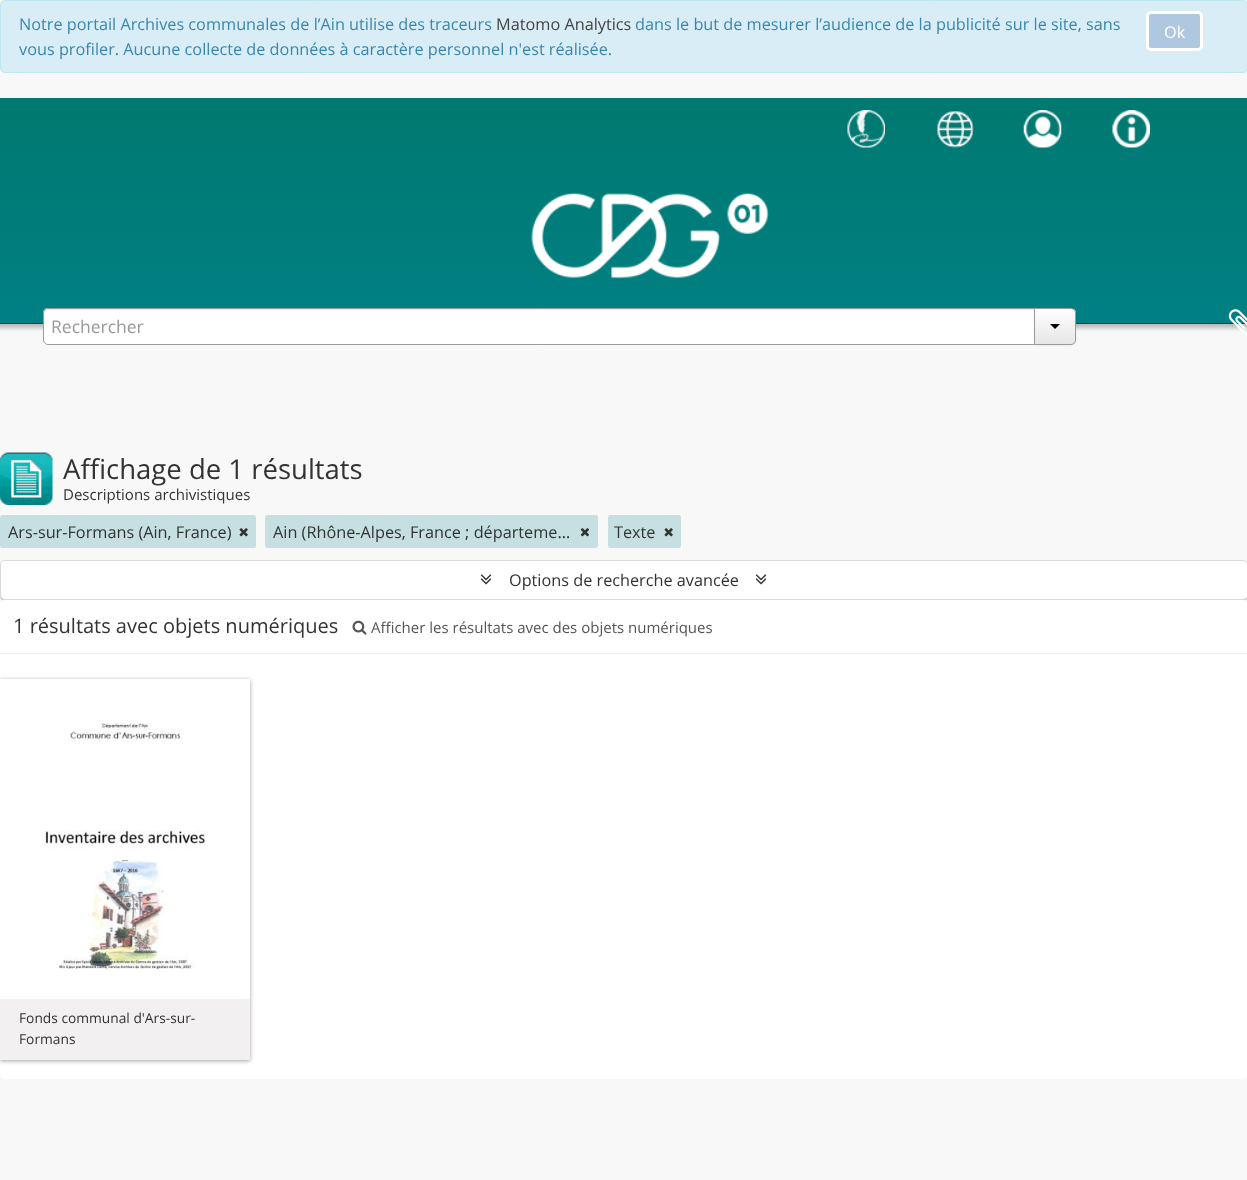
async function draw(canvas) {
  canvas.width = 1247;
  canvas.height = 1180;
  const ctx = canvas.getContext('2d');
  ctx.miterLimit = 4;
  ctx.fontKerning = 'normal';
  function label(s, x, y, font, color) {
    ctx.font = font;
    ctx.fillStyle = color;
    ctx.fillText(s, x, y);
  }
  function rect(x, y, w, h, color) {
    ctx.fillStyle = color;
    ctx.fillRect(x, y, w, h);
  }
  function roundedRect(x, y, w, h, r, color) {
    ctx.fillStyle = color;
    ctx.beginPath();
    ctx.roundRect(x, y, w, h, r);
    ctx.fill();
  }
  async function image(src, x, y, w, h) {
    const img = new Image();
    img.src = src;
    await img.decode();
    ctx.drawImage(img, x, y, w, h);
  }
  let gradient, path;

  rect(0, 0, 1247, 1180, '#f8f8f8');
  ctx.fillStyle = '#d9edf7';
  ctx.beginPath();
  ctx.roundRect(0.5, 0.5, 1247, 72, 4.5);
  ctx.fill();
  ctx.strokeStyle = '#bce8f1';
  ctx.stroke();
  label('Notre portail Archives communales de l’Ain utilise des traceurs', 19, 30, '16.25px Open Sans', '#3a87ad');
  label('Matomo Analytics', 496, 30, '16.25px Open Sans', '#444');
  label('dans le but de mesurer l’audience de la publicité sur le site, sans', 635, 30, '16.25px Open Sans', '#3a87ad');
  label('vous profiler. Aucune collecte de données à caractère personnel n\'est réalisée.', 19, 55, '16.25px Open Sans', '#3a87ad');
  ctx.fillStyle = '#afc8df';
  ctx.beginPath();
  ctx.roundRect(1147.5, 12.5, 54, 37, 3.5);
  ctx.fill();
  ctx.strokeStyle = '#fff';
  ctx.lineWidth = 3;
  ctx.stroke();
  label('Ok', 1164, 38, '16.25px Open Sans', '#fff');
  ctx.fillStyle = '#00000040';
  ctx.filter = 'blur(2px)';
  ctx.beginPath();
  ctx.rect(-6, 101, 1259, 227);
  ctx.fill();
  ctx.filter = 'none';
  gradient = ctx.createLinearGradient(624, 97, 624, 323);
  gradient.addColorStop(0, '#007970');
  gradient.addColorStop(1, '#008083');
  ctx.fillStyle = gradient;
  ctx.fillRect(0, 98, 1247, 225);
  rect(0, 323, 1247, 1, '#333');
  await image('assets/img1.png', 847, 110, 38, 38);
  await image('assets/img2.png', 936, 110, 38, 38);
  await image('assets/img3.png', 1023, 110, 39, 38);
  await image('assets/img4.png', 1112, 110, 38, 38);
  await image('assets/img5.png', 531, 192, 238, 87);
  ctx.fillStyle = '#fff';
  ctx.beginPath();
  ctx.roundRect(43, 308, 992, 37, [5, 0, 0, 5]);
  ctx.fill();
  ctx.fillStyle = '#ececec';
  path = new Path2D('M48 310H1034V309H48C45 309 44 311 44 314C44 312 45 310 48 310Z');
  ctx.fill(path);
  ctx.beginPath();
  ctx.roundRect(43.5, 308.5, 991, 36, [4.5, 0, 0, 4.5]);
  ctx.strokeStyle = '#9a9a9a';
  ctx.lineWidth = 1;
  ctx.stroke();
  label('Rechercher', 51, 333, '17.5px Open Sans', '#999');
  ctx.fillStyle = '#0000000d';
  ctx.filter = 'blur(1px)';
  ctx.beginPath();
  ctx.roundRect(1034, 309, 42, 37, 5);
  ctx.fill();
  ctx.filter = 'none';
  ctx.save();
  ctx.beginPath();
  ctx.roundRect(1034, 308, 42, 37, [0, 5, 5, 0]);
  ctx.clip();
  gradient = ctx.createLinearGradient(1055, 309, 1055, 344);
  gradient.addColorStop(0, '#fff');
  gradient.addColorStop(1, '#e6e6e6');
  ctx.fillStyle = gradient;
  ctx.fillRect(1035, 309, 41, 35);
  ctx.restore();
  ctx.beginPath();
  ctx.roundRect(1034.5, 308.5, 41, 36, [0, 4.5, 4.5, 0]);
  ctx.stroke();
  ctx.fillStyle = '#000';
  path = new Path2D('M1050 324H1060L1055 329Z');
  ctx.fill(path);
  await image('assets/img6.png', 1228, 309, 19, 26);
  await image('assets/img7.png', 0, 452, 53, 53);
  label('Affichage de 1 résultats', 63, 479, '27.5px Open Sans', '#333');
  label('Descriptions archivistiques', 63, 500, '15px Open Sans', '#333');
  roundedRect(0, 515, 256, 33, 2.5, '#c6e0e1');
  label('Ars-sur-Formans (Ain, France)', 8, 538, '16.25px Open Sans', '#333');
  await image('assets/img8.png', 239, 528, 9, 9);
  roundedRect(265, 515, 333, 33, 2.5, '#c6e0e1');
  label('Ain (Rhône-Alpes, France ; départeme…', 273, 538, '16.25px Open Sans', '#333');
  await image('assets/img9.png', 580, 528, 9, 9);
  roundedRect(608, 515, 73, 33, 2.5, '#c6e0e1');
  label('Texte', 614, 538, '16.25px Open Sans', '#333');
  await image('assets/img8.png', 664, 528, 9, 9);
  ctx.fillStyle = '#00000033';
  ctx.filter = 'blur(0.5px)';
  ctx.beginPath();
  ctx.roundRect(0, 561, 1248, 40, 5);
  ctx.fill();
  ctx.filter = 'none';
  ctx.fillStyle = '#fff';
  ctx.beginPath();
  ctx.roundRect(0.5, 560.5, 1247, 39, 4.5);
  ctx.fill();
  ctx.strokeStyle = '#d9d9d9';
  ctx.stroke();
  await image('assets/img10.png', 480, 574, 12, 11);
  label('Options de recherche avancée', 509, 586, '16.25px Open Sans', '#333');
  await image('assets/img10.png', 755, 574, 12, 11);
  roundedRect(0, 600, 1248, 479, 5, '#fff');
  rect(0, 653, 1247, 1, '#eee');
  label('1 résultats avec objets numériques', 13, 633, '20px Open Sans', '#333');
  await image('assets/img11.png', 352, 620, 15, 15);
  label('Afficher les résultats avec des objets numériques', 371, 633, '15px Open Sans', '#555');
  ctx.save();
  path = new Path2D('M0 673H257V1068H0ZM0 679H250V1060H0Z');
  ctx.clip(path, 'evenodd');
  ctx.fillStyle = '#19191966';
  ctx.filter = 'blur(2px)';
  ctx.beginPath();
  ctx.rect(0, 680, 250, 381);
  ctx.fill();
  ctx.filter = 'none';
  ctx.restore();
  await image('assets/img12.png', 44, 723, 164, 247);
  rect(0, 999, 250, 61, '#f2f0f0');
  label('Fonds communal d\'Ars-sur-', 19, 1023, '13.75px Open Sans', '#333');
  label('Formans', 19, 1044, '13.75px Open Sans', '#333');
}

draw(document.querySelector('canvas'));
